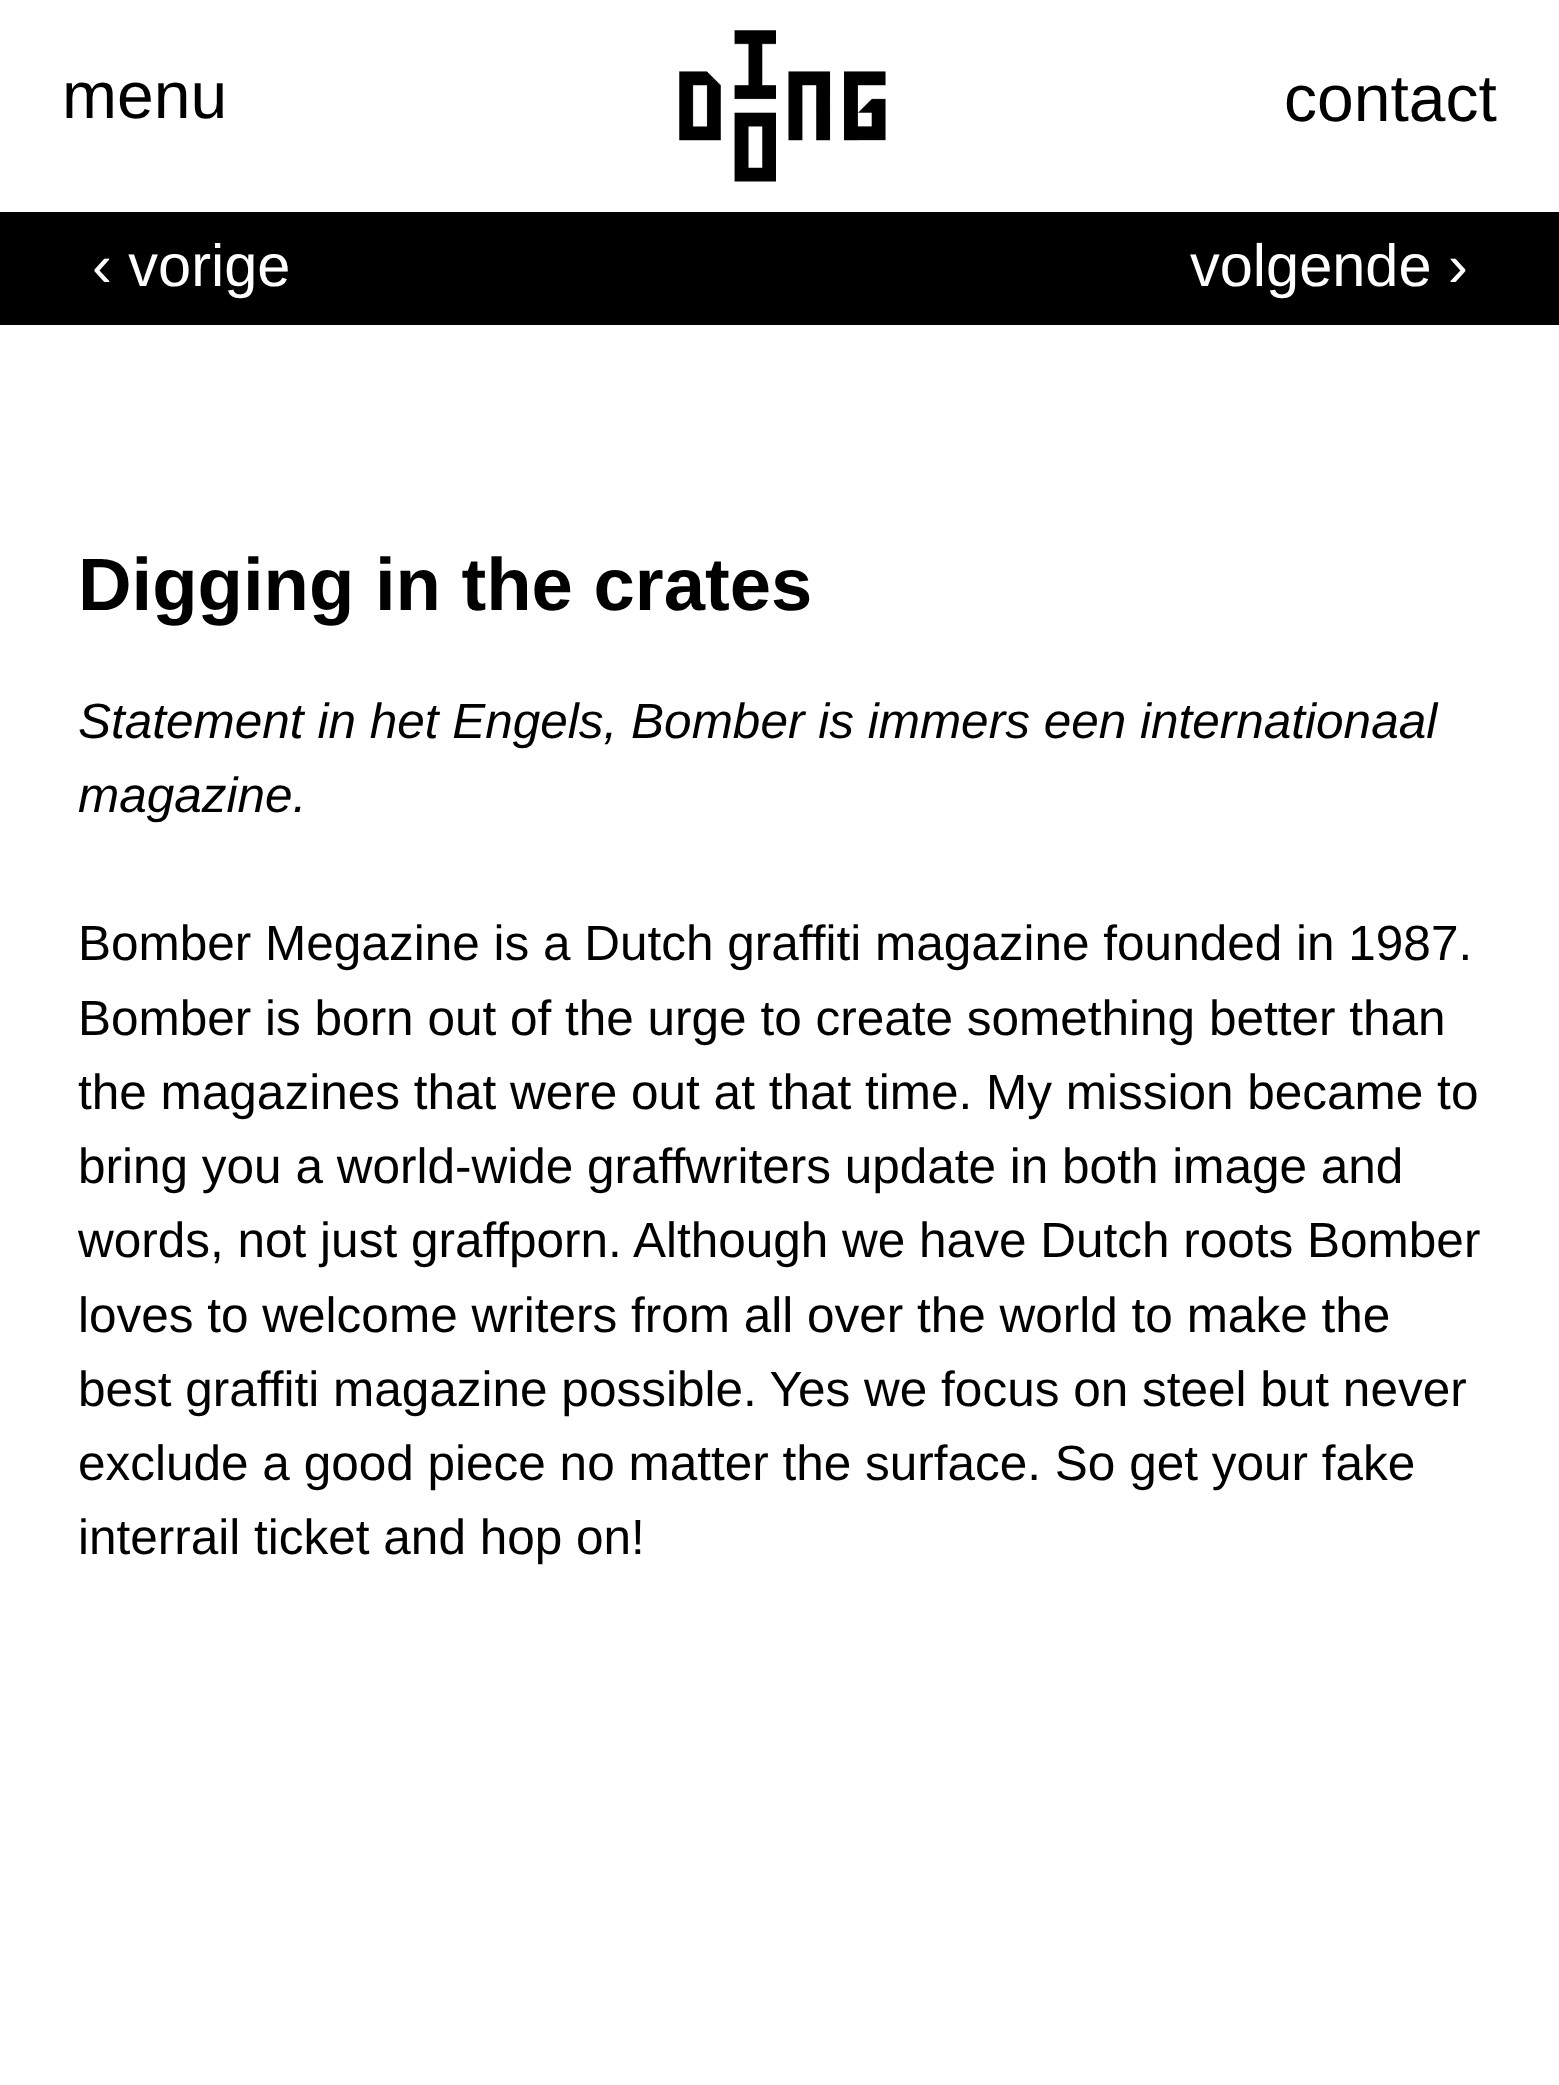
async function draw(canvas) {
  canvas.width = 1559;
  canvas.height = 2085;
  const ctx = canvas.getContext('2d');
  ctx.miterLimit = 4;
  ctx.fontKerning = 'normal';
  function label(s, x, y, font, color) {
    ctx.font = font;
    ctx.fillStyle = color;
    ctx.fillText(s, x, y);
  }
  function rect(x, y, w, h, color) {
    ctx.fillStyle = color;
    ctx.fillRect(x, y, w, h);
  }
  async function image(src, x, y, w, h) {
    const img = new Image();
    img.src = src;
    await img.decode();
    ctx.drawImage(img, x, y, w, h);
  }

  rect(0, 0, 1559, 2085, '#fff');
  label('menu', 62, 118, '66px Liberation Sans', '#000');
  await image('assets/img1.png', 679, 30, 207, 152);
  label('contact', 1284, 121, '66px Liberation Sans', '#000');
  rect(0, 212, 1559, 113, '#000');
  label('‹ vorige', 92, 286, '59.5px Liberation Sans', '#fff');
  label('volgende ›', 1190, 286, '59.5px Liberation Sans', '#fff');
  label('Digging in the crates', 78, 610, 'bold 74.25px Liberation Sans', '#000');
  label('Statement in het Engels, Bomber is immers een internationaal', 78, 738, 'italic 49.5px Liberation Sans', '#000');
  label('magazine.', 78, 812, 'italic 49.5px Liberation Sans', '#000');
  label('Bomber Megazine is a Dutch graffiti magazine founded in 1987.', 78, 960, '49.5px Liberation Sans', '#000');
  label('Bomber is born out of the urge to create something better than', 78, 1035, '49.5px Liberation Sans', '#000');
  label('the magazines that were out at that time. My mission became to', 78, 1109, '49.5px Liberation Sans', '#000');
  label('bring you a world-wide graffwriters update in both image and', 78, 1183, '49.5px Liberation Sans', '#000');
  label('words, not just graffporn. Although we have Dutch roots Bomber', 78, 1257, '49.5px Liberation Sans', '#000');
  label('loves to welcome writers from all over the world to make the', 78, 1332, '49.5px Liberation Sans', '#000');
  label('best graffiti magazine possible. Yes we focus on steel but never', 78, 1406, '49.5px Liberation Sans', '#000');
  label('exclude a good piece no matter the surface. So get your fake', 78, 1480, '49.5px Liberation Sans', '#000');
  label('interrail ticket and hop on!', 78, 1554, '49.5px Liberation Sans', '#000');
}

draw(document.querySelector('canvas'));
